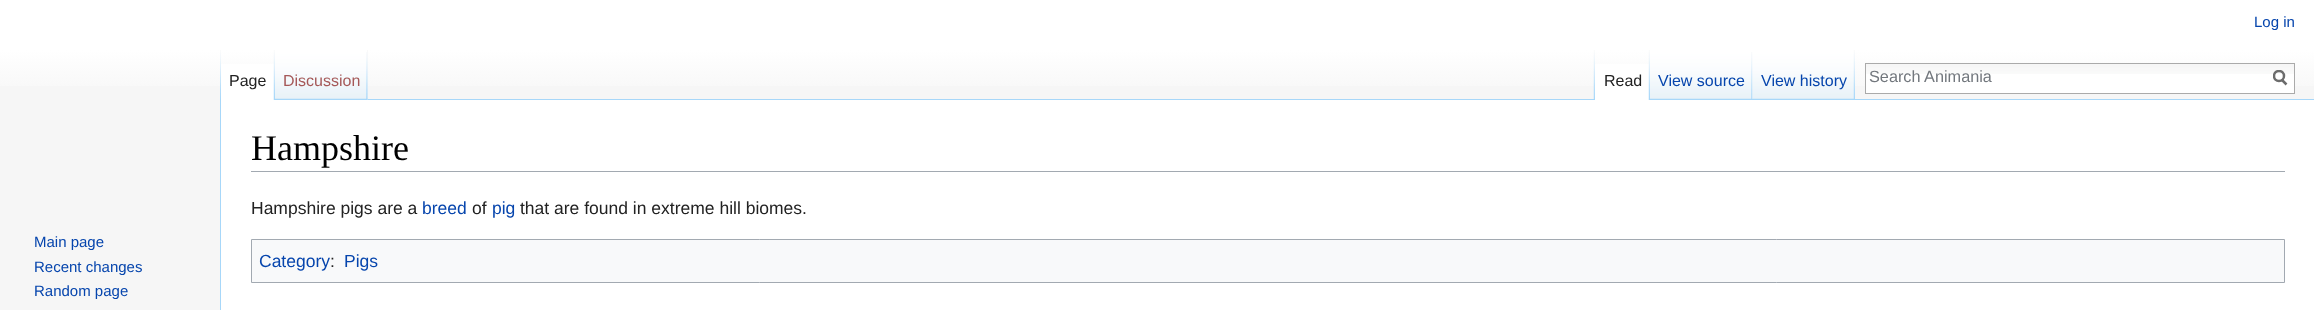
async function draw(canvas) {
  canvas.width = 2314;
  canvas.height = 310;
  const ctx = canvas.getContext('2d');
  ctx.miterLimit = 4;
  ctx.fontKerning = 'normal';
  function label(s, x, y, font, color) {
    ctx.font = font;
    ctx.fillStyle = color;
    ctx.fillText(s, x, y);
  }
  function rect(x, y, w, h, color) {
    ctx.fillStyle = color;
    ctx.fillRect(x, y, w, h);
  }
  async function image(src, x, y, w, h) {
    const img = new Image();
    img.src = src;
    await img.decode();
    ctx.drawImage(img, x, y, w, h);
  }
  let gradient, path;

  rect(0, 0, 2314, 310, '#f6f6f6');
  gradient = ctx.createLinearGradient(1158, 0, 1158, 100);
  gradient.addColorStop(0.5, '#fff');
  gradient.addColorStop(1, '#f6f6f6');
  ctx.fillStyle = gradient;
  ctx.fillRect(0, 0, 2314, 86);
  label('Log in', 2254, 27, '15px Liberation Sans', '#0645ad');
  await image('assets/img1.png', 220, 50, 1, 49);
  rect(221, 64, 53, 36, '#fff');
  await image('assets/img2.png', 273, 50, 2, 50);
  label('Page', 229, 86, '16px Liberation Sans', '#222');
  rect(367, 50, 1, 50, '#f3f3f3');
  await image('assets/img3.png', 275, 50, 93, 50);
  await image('assets/img4.png', 366, 52, 2, 48);
  label('Discussion', 283, 86, '16px Liberation Sans', '#a55858');
  await image('assets/img5.png', 1593, 50, 2, 49);
  rect(368, 99, 1946, 1, '#a7d7f9');
  rect(1595, 64, 54, 36, '#fff');
  await image('assets/img2.png', 1648, 50, 2, 50);
  label('Read', 1604, 86, '16px Liberation Sans', '#222');
  await image('assets/img6.png', 1650, 50, 103, 50);
  await image('assets/img4.png', 1751, 52, 2, 48);
  label('View source', 1658, 86, '16px Liberation Sans', '#0645ad');
  await image('assets/img7.png', 1752, 50, 103, 50);
  await image('assets/img8.png', 1853, 50, 2, 49);
  label('View history', 1761, 86, '16px Liberation Sans', '#0645ad');
  rect(1866, 74, 428, 19, '#fff');
  await image('assets/img9.png', 1866, 64, 428, 10);
  ctx.strokeStyle = '#aaa';
  ctx.strokeRect(1865.5, 63.5, 429, 30);
  label('Search Animania', 1869, 82, '16.25px Liberation Sans', '#72777d');
  path = new Path2D('M2286.5 84.5L2281.5 79.5');
  ctx.strokeStyle = '#6c6c6c';
  ctx.lineWidth = 2.5;
  ctx.stroke(path);
  ctx.save();
  ctx.beginPath();
  ctx.rect(2273, 70, 15, 16);
  ctx.clip();
  ctx.beginPath();
  ctx.arc(2279, 76, 5, 0, 2 * Math.PI);
  ctx.stroke();
  ctx.restore();
  label('Main page', 34, 247, '15px Liberation Sans', '#0645ad');
  label('Recent changes', 34, 272, '15px Liberation Sans', '#0645ad');
  label('Random page', 34, 296, '15px Liberation Sans', '#0645ad');
  rect(221, 100, 2093, 210, '#fff');
  rect(220, 99, 1, 211, '#a7d7f9');
  rect(251, 171, 2034, 1, '#a2a9b1');
  label('Hampshire', 251, 160, '36px Liberation Serif', '#000');
  label('Hampshire pigs are a', 251, 214, '17.5px Liberation Sans', '#222');
  label('breed', 422, 214, '17.5px Liberation Sans', '#0645ad');
  label('of', 472, 214, '17.5px Liberation Sans', '#222');
  label('pig', 492, 214, '17.5px Liberation Sans', '#0645ad');
  label('that are found in extreme hill biomes.', 520, 214, '17.5px Liberation Sans', '#222');
  ctx.fillStyle = '#f8f9fa';
  ctx.beginPath();
  ctx.rect(251.5, 239.5, 2033, 43);
  ctx.fill();
  ctx.strokeStyle = '#a2a9b1';
  ctx.lineWidth = 1;
  ctx.stroke();
  label('Category', 259, 267, '17.5px Liberation Sans', '#0645ad');
  label(':', 330, 267, '17.5px Liberation Sans', '#222');
  label('Pigs', 344, 267, '17.5px Liberation Sans', '#0645ad');
}

draw(document.querySelector('canvas'));
